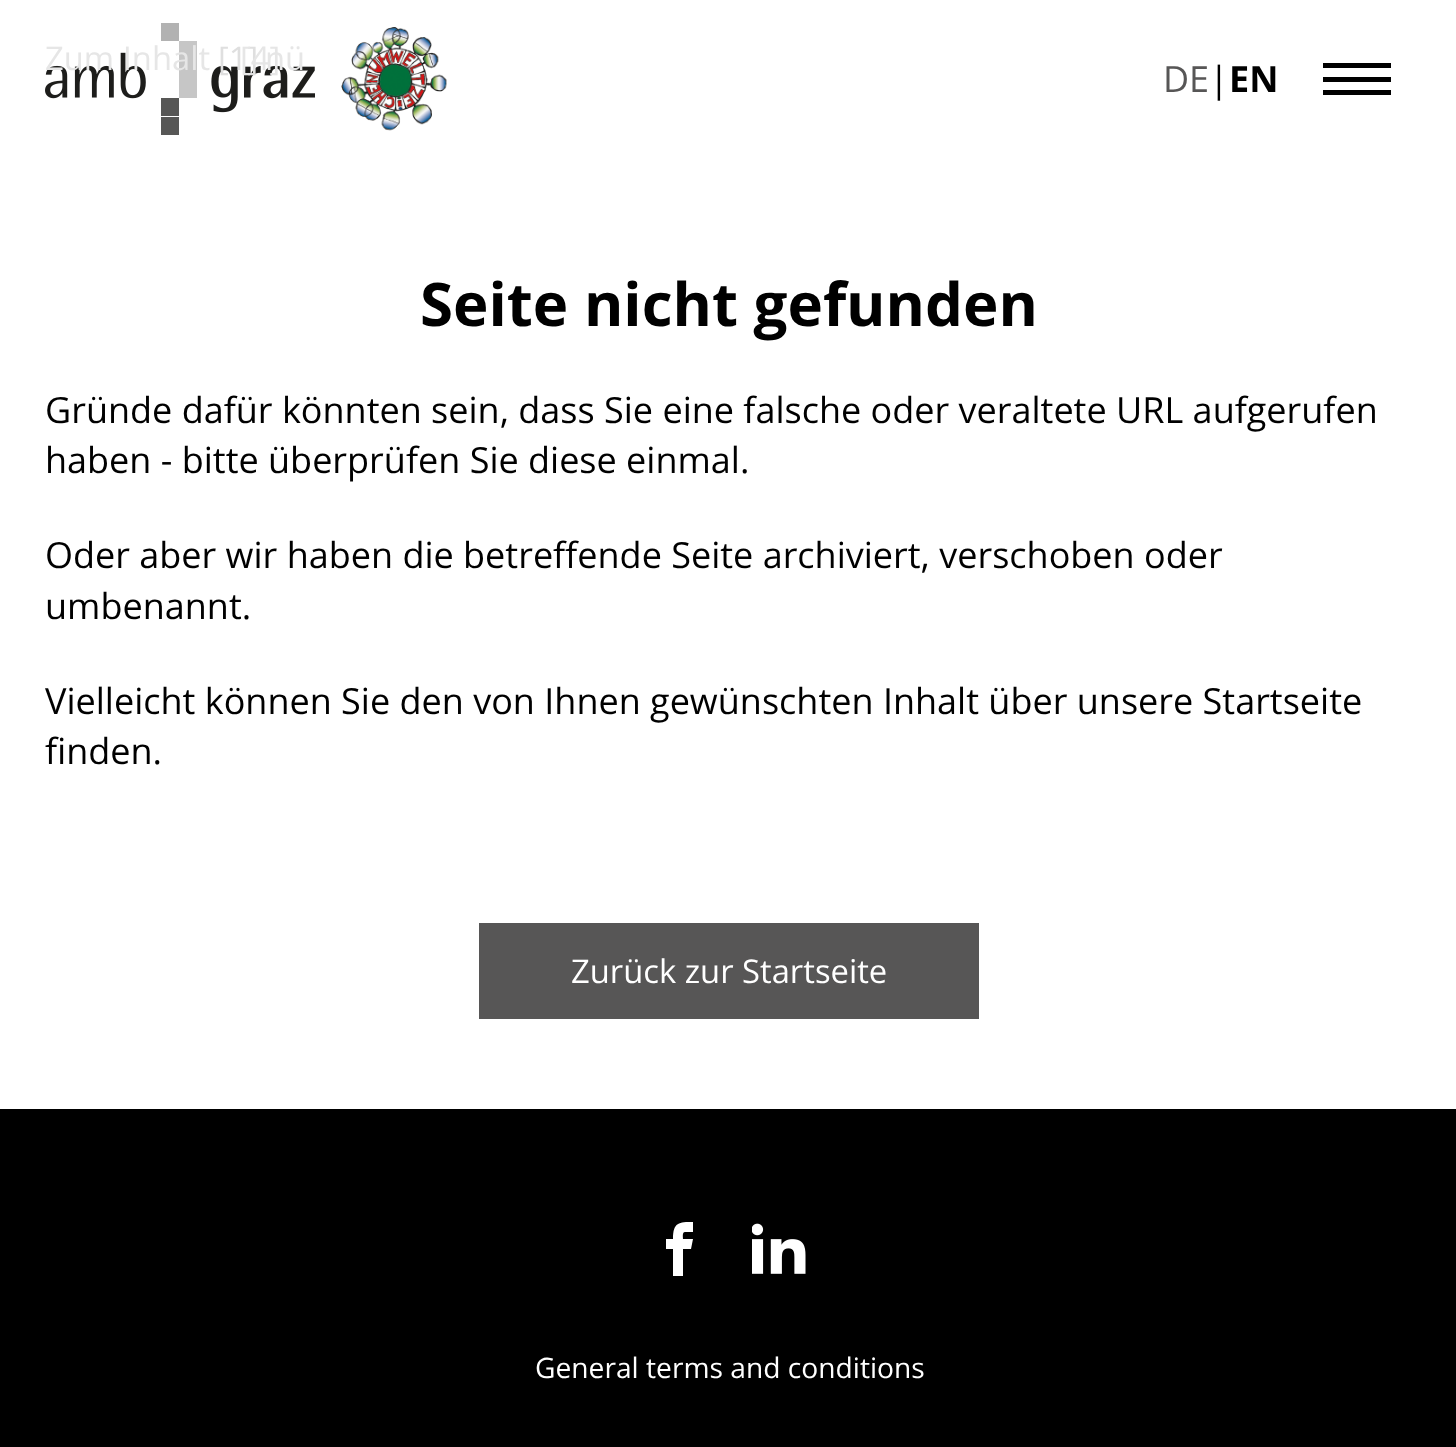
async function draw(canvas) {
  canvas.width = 1456;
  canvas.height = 1447;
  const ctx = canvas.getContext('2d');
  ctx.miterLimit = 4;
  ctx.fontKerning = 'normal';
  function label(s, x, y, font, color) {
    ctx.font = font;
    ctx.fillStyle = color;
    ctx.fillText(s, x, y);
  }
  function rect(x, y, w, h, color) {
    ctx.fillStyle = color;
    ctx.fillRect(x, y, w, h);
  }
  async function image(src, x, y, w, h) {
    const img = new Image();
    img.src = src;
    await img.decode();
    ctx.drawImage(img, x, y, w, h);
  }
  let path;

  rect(0, 0, 1456, 1447, '#fff');
  await image('assets/img1.png', 45, 23, 270, 112);
  label('Zum Inhalt', 45, 70, '32.75px Open Sans', '#e6e6e6');
  label('[1]', 218, 70, '32.75px Open Sans', '#dfdfdf');
  label('nü', 265, 70, '32.75px Open Sans', '#e6e6e6');
  label('[4]', 240, 70, '32.75px Open Sans', '#e6e6e6');
  await image('assets/img2.png', 341, 27, 106, 104);
  label('DE', 1163, 92, '36px Open Sans', '#575656');
  label('|', 1209, 92, '36px Open Sans', '#000');
  label('EN', 1229, 92, 'bold 36px Open Sans', '#000');
  rect(1323, 63, 68, 5, '#000');
  rect(1323, 77, 68, 5, '#000');
  rect(1323, 90, 68, 5, '#000');
  label('Seite nicht gefunden', 420, 326, 'bold 60px Open Sans', '#000');
  label('Gründe dafür könnten sein, dass Sie eine falsche oder veraltete URL aufgerufen', 45, 423, '36px Open Sans', '#000');
  label('haben - bitte überprüfen Sie diese einmal.', 45, 473, '36px Open Sans', '#000');
  label('Oder aber wir haben die betreffende Seite archiviert, verschoben oder', 45, 568, '36px Open Sans', '#000');
  label('umbenannt.', 45, 619, '36px Open Sans', '#000');
  label('Vielleicht können Sie den von Ihnen gewünschten Inhalt über unsere Startseite', 45, 714, '36px Open Sans', '#000');
  label('finden.', 45, 764, '36px Open Sans', '#000');
  rect(479, 923, 500, 96, '#575656');
  label('Zurück zur Startseite', 571, 983, '32.75px Open Sans', '#fff');
  rect(0, 1109, 1456, 338, '#000');
  ctx.fillStyle = '#fff';
  path = new Path2D('M685 1232H693V1222C679 1222 673 1222 673 1239H666V1249H673V1276H683V1249H691L693 1239H683C683 1237 682 1232 685 1232Z');
  ctx.fill(path, 'evenodd');
  await image('assets/img3.png', 752, 1223, 54, 51);
  label('General terms and conditions', 535, 1378, '28.2px Open Sans', '#fff');
}

draw(document.querySelector('canvas'));
